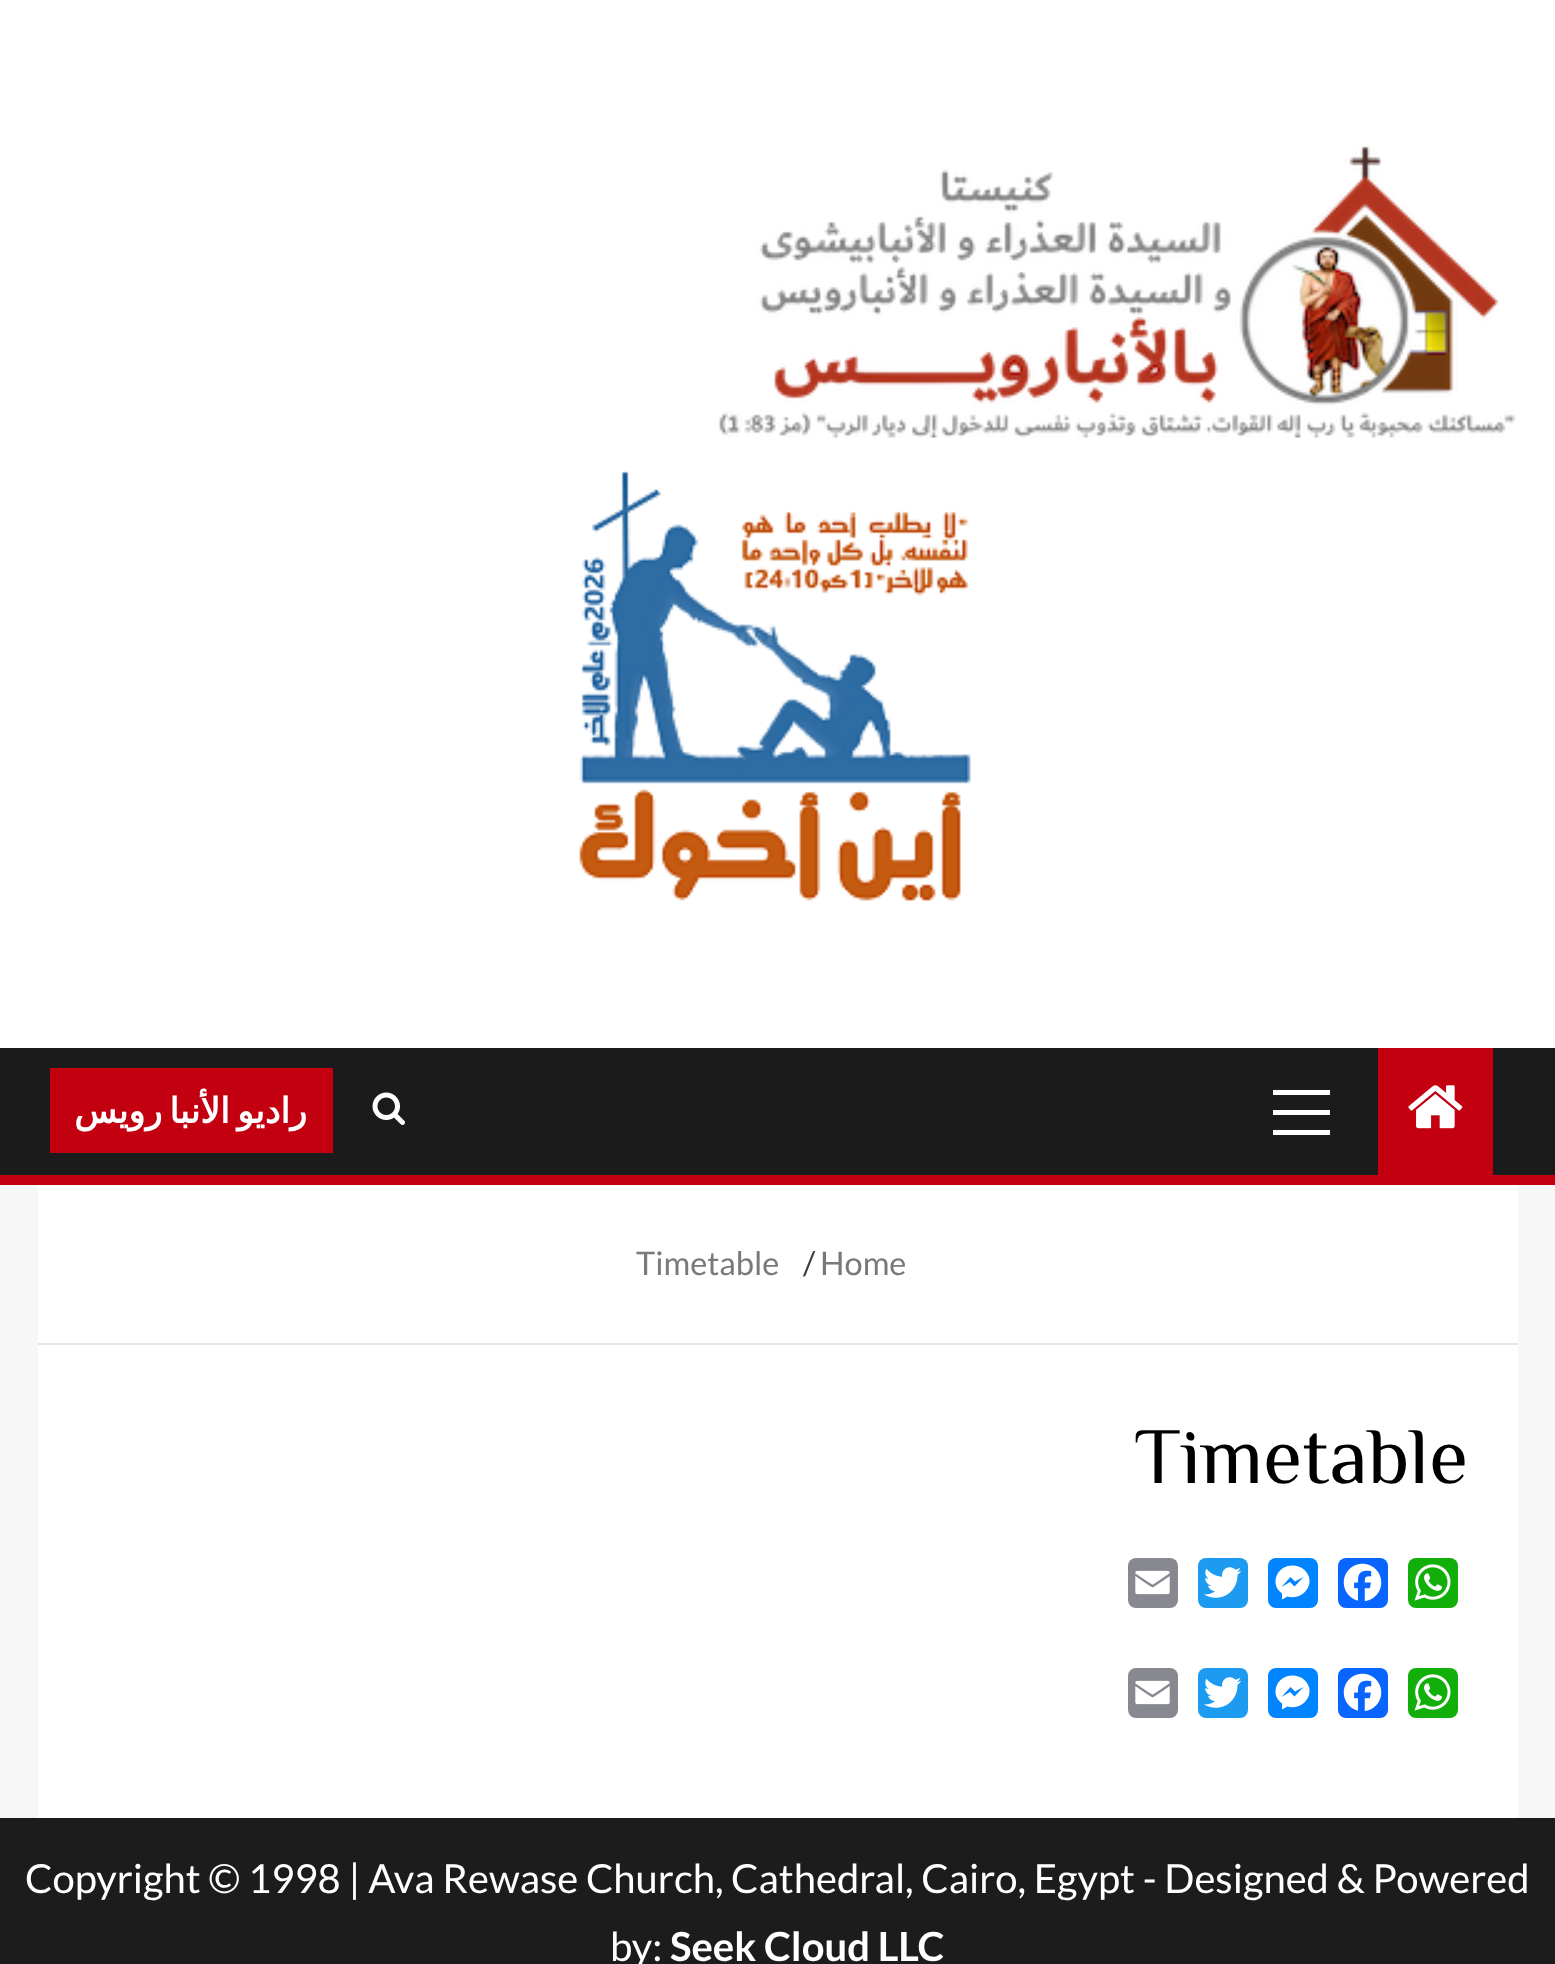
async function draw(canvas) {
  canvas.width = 1555;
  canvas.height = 1964;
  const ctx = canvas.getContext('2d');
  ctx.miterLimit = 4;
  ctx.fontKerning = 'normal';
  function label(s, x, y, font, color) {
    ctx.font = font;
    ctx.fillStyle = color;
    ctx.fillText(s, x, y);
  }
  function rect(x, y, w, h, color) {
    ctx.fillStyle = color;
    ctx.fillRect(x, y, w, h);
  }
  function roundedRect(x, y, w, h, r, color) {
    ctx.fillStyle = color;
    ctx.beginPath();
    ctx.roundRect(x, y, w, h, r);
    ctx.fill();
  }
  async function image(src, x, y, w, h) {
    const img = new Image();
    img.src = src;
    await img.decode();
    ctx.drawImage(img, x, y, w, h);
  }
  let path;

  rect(0, 0, 1555, 1964, '#f7f7f7');
  rect(0, 0, 1555, 1048, '#fff');
  await image('assets/img1.png', 719, 146, 797, 292);
  await image('assets/img2.png', 579, 471, 392, 430);
  rect(0, 1048, 1555, 127, '#1b1b1b');
  rect(0, 1175, 1555, 10, '#c30010');
  rect(50, 1068, 283, 85, '#c30010');
  ctx.wordSpacing = '-4px';
  ctx.direction = 'rtl';
  label('راديو الأنبا رويس', 307, 1123, 'bold 35px DejaVu Sans', '#fff');
  await image('assets/img3.png', 372, 1092, 33, 33);
  rect(1273, 1110, 57, 5, '#fff');
  rect(1273, 1090, 57, 5, '#fff');
  rect(1273, 1130, 57, 5, '#fff');
  rect(1378, 1048, 115, 127, '#c30010');
  await image('assets/img4.png', 1408, 1085, 55, 44);
  rect(38, 1185, 1480, 158, '#fff');
  rect(38, 1343, 1480, 2, '#e6e6e6');
  ctx.wordSpacing = '0px';
  ctx.direction = 'ltr';
  label('Timetable', 636, 1275, '32.5px Lato', '#797979');
  label('/', 803, 1275, '32.5px Lato', '#393e46');
  label('Home', 820, 1275, '32.5px Lato', '#797979');
  rect(38, 1345, 1480, 473, '#fff');
  label('Timetable', 1134, 1483, '80px El Messiri', '#000');
  roundedRect(1128, 1558, 50, 50, 8, '#888990');
  await image('assets/img5.png', 1135, 1570, 35, 25);
  roundedRect(1198, 1558, 50, 50, 8, '#1d9bf0');
  await image('assets/img6.png', 1204, 1567, 37, 31);
  roundedRect(1268, 1558, 50, 50, 8, '#0084ff');
  ctx.fillStyle = '#fff';
  path = new Path2D('M1292.5 1565.5C1277 1565.5 1269 1584 1282 1593.5V1599.5L1287.5 1596.5C1303.5 1601 1317.5 1582.5 1304.5 1570C1301.5 1567 1297 1565.5 1292.5 1565.5M1294.5 1586.5L1290 1582L1281.5 1587L1290.5 1577L1295 1581.5L1303.5 1577Z');
  ctx.fill(path);
  roundedRect(1338, 1558, 50, 50, 8, '#0866ff');
  await image('assets/img7.png', 1343, 1563, 39, 38);
  roundedRect(1408, 1558, 50, 50, 8, '#12af0a');
  await image('assets/img8.png', 1414, 1564, 37, 37);
  roundedRect(1128, 1668, 50, 50, 8, '#888990');
  await image('assets/img5.png', 1135, 1680, 35, 25);
  roundedRect(1198, 1668, 50, 50, 8, '#1d9bf0');
  await image('assets/img6.png', 1204, 1677, 37, 31);
  roundedRect(1268, 1668, 50, 50, 8, '#0084ff');
  ctx.fillStyle = '#fff';
  path = new Path2D('M1292.5 1675.5C1277 1675.5 1269 1694 1282 1703.5V1709.5L1287.5 1706.5C1303.5 1711 1317.5 1692.5 1304.5 1680C1301.5 1677 1297 1675.5 1292.5 1675.5M1294.5 1696.5L1290 1692L1281.5 1697L1290.5 1687L1295 1691.5L1303.5 1687Z');
  ctx.fill(path);
  roundedRect(1338, 1668, 50, 50, 8, '#0866ff');
  await image('assets/img7.png', 1343, 1673, 39, 38);
  roundedRect(1408, 1668, 50, 50, 8, '#12af0a');
  await image('assets/img8.png', 1414, 1674, 37, 37);
  rect(0, 1818, 1555, 146, '#1c1c1c');
  label('Copyright © 1998 | Ava Rewase Church, Cathedral, Cairo, Egypt - Designed & Powered', 25, 1893, '40px Lato', '#fff');
  label('by:', 610, 1961, '40px Lato', '#fff');
  label('Seek Cloud LLC', 670, 1961, 'bold 40px Lato', '#fff');
}

draw(document.querySelector('canvas'));
